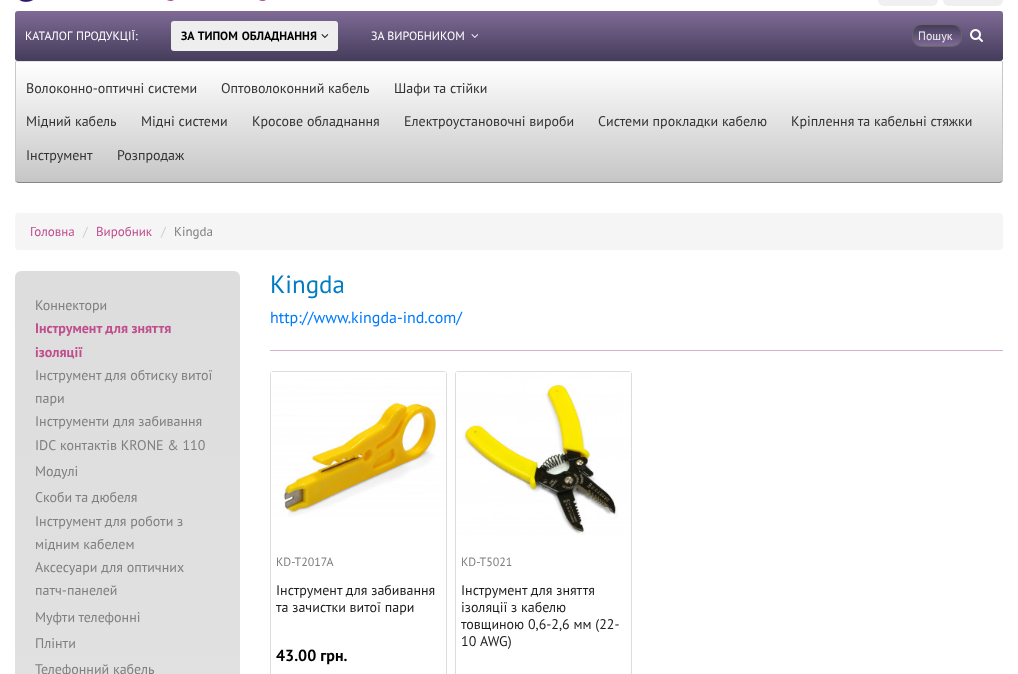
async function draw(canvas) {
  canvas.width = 1018;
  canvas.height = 674;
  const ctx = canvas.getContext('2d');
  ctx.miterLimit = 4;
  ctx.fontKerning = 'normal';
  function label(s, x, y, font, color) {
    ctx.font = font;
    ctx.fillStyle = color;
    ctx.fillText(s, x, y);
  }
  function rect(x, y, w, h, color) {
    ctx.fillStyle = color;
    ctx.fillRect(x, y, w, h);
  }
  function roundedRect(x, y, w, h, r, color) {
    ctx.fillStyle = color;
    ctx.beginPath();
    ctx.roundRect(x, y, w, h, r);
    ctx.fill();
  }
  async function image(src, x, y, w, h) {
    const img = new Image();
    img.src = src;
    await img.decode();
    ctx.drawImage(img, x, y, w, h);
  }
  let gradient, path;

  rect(0, 0, 1018, 674, '#fff');
  await image('assets/img1.png', 19, 0, 247, 2);
  roundedRect(878, -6, 60, 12, 6, '#f0f0f0');
  roundedRect(943, -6, 60, 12, 6, '#efefef');
  gradient = ctx.createLinearGradient(509, 61, 509, 11);
  gradient.addColorStop(0, '#443c5a');
  gradient.addColorStop(1, '#7f6a96');
  ctx.fillStyle = gradient;
  ctx.beginPath();
  ctx.roundRect(15, 11, 988, 50, 3);
  ctx.fill();
  ctx.wordSpacing = '1px';
  label('КАТАЛОГ ПРОДУКЦІЇ:', 25, 40, '12px PT Sans', '#fff');
  roundedRect(171, 21, 167, 30, 3, '#eee');
  label('ЗА ТИПОМ ОБЛАДНАННЯ', 181, 40, 'bold 12px PT Sans', '#000');
  await image('assets/img2.png', 321, 34, 8, 4);
  ctx.wordSpacing = '0px';
  label('ЗА ВИРОБНИКОМ', 371, 40, '12px PT Sans', '#fff');
  await image('assets/img3.png', 471, 34, 8, 4);
  ctx.save();
  ctx.beginPath();
  ctx.roundRect(912, 24, 50, 23, 10);
  ctx.clip();
  gradient = ctx.createLinearGradient(937, 46, 937, 25);
  gradient.addColorStop(0, '#7f6a96');
  gradient.addColorStop(1, '#443c5a');
  ctx.fillStyle = gradient;
  ctx.fillRect(912, 25, 50, 21);
  ctx.restore();
  ctx.beginPath();
  ctx.roundRect(912.5, 24.5, 49, 22, 9.5);
  ctx.strokeStyle = '#666';
  ctx.stroke();
  label('Пошук', 918, 40, '12px PT Sans', '#eee');
  await image('assets/img4.png', 970, 29, 13, 13);
  ctx.save();
  ctx.beginPath();
  ctx.roundRect(15, 61, 988, 122, [0, 0, 3, 3]);
  ctx.clip();
  gradient = ctx.createLinearGradient(509, 182, 509, 62);
  gradient.addColorStop(0, '#c6c6c6');
  gradient.addColorStop(1, '#fff');
  ctx.fillStyle = gradient;
  ctx.fillRect(15, 62, 988, 120);
  ctx.restore();
  ctx.fillStyle = '#e4e4e4';
  path = new Path2D('M15 61L16 62H1002L1003 61Z');
  ctx.fill(path);
  ctx.fillStyle = '#c7c7c7';
  path = new Path2D('M1003 61L1002 62V180L1001 181L1002 182L1003 180Z');
  ctx.fill(path);
  ctx.fillStyle = '#878787';
  path = new Path2D('M18 183H1000L1002 182L1001 181L1000 182H18L17 181L16 182Z');
  ctx.fill(path);
  ctx.fillStyle = '#c7c7c7';
  path = new Path2D('M16 62L15 61V180L16 182L17 181L16 180Z');
  ctx.fill(path);
  label('Волоконно-оптичні системи', 26, 93, '14px PT Sans', '#333');
  label('Оптоволоконний кабель', 221, 93, '14px PT Sans', '#333');
  label('Шафи та стійки', 394, 93, '14px PT Sans', '#333');
  label('Мідний кабель', 26, 126, '14px PT Sans', '#333');
  label('Мідні системи', 141, 126, '14px PT Sans', '#333');
  label('Кросове обладнання', 252, 126, '14px PT Sans', '#333');
  label('Електроустановочні вироби', 404, 126, '14px PT Sans', '#333');
  label('Системи прокладки кабелю', 598, 126, '14px PT Sans', '#333');
  label('Кріплення та кабельні стяжки', 791, 126, '14px PT Sans', '#333');
  label('Інструмент', 26, 160, '14px PT Sans', '#333');
  label('Розпродаж', 117, 160, '14px PT Sans', '#333');
  roundedRect(15, 213, 988, 37, 4, '#f5f5f5');
  label('Головна', 30, 236, '13px PT Sans', '#c04d8c');
  label('/', 83, 236, '13px PT Sans', '#ccc');
  label('Виробник', 96, 236, '13px PT Sans', '#c04d8c');
  label('/', 161, 236, '13px PT Sans', '#ccc');
  label('Kingda', 174, 236, '13px PT Sans', '#7f7f7f');
  gradient = ctx.createLinearGradient(128, 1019, 128, 271);
  gradient.addColorStop(0, '#e4e4e4');
  gradient.addColorStop(1, '#ddd');
  ctx.fillStyle = gradient;
  ctx.beginPath();
  ctx.roundRect(15, 271, 225, 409, 6);
  ctx.fill();
  label('Коннектори', 35, 310, '14px PT Sans', '#7f7f7f');
  label('Інструмент для зняття', 35, 333, 'bold 14px PT Sans', '#c04d8c');
  label('ізоляції', 35, 357, 'bold 14px PT Sans', '#c04d8c');
  label('Інструмент для обтиску витої', 35, 380, '14px PT Sans', '#7f7f7f');
  label('пари', 35, 403, '14px PT Sans', '#7f7f7f');
  label('Інструменти для забивання', 35, 426, '14px PT Sans', '#7f7f7f');
  label('IDC контактів KRONE & 110', 35, 450, '14px PT Sans', '#7f7f7f');
  label('Модулі', 35, 476, '14px PT Sans', '#7f7f7f');
  label('Скоби та дюбеля', 35, 502, '14px PT Sans', '#7f7f7f');
  label('Інструмент для роботи з', 35, 526, '14px PT Sans', '#7f7f7f');
  label('мідним кабелем', 35, 549, '14px PT Sans', '#7f7f7f');
  label('Аксесуари для оптичних', 35, 572, '14px PT Sans', '#7f7f7f');
  label('патч-панелей', 35, 595, '14px PT Sans', '#7f7f7f');
  label('Муфти телефонні', 35, 622, '14px PT Sans', '#7f7f7f');
  label('Плінти', 35, 648, '14px PT Sans', '#7f7f7f');
  label('Телефонний кабель', 35, 674, '14px PT Sans', '#7f7f7f');
  label('Kingda', 270, 293, '25px PT Sans', '#007cc3');
  label('http://www.kingda-ind.com/', 270, 323, '16px PT Sans', '#007bff');
  rect(270, 350, 733, 1, '#d8b0c9');
  ctx.beginPath();
  ctx.roundRect(270.5, 371.5, 176, 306, 2.5);
  ctx.strokeStyle = '#ddd';
  ctx.stroke();
  await image('assets/img5.png', 271, 372, 175, 145);
  label('KD-T2017A', 276, 566, '12px PT Sans', '#7f7f7f');
  label('Інструмент для забивання', 276, 595, '14px PT Sans', '#1d1d1d');
  label('та зачистки витої пари', 276, 612, '14px PT Sans', '#1d1d1d');
  label('43.00 грн.', 276, 661, 'bold 16px PT Sans', '#000');
  ctx.beginPath();
  ctx.roundRect(455.5, 371.5, 176, 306, 2.5);
  ctx.stroke();
  await image('assets/img6.png', 456, 372, 175, 163);
  label('KD-T5021', 461, 566, '12px PT Sans', '#7f7f7f');
  label('Інструмент для зняття', 461, 595, '14px PT Sans', '#1d1d1d');
  label('ізоляції з кабелю', 461, 612, '14px PT Sans', '#1d1d1d');
  label('товщиною 0,6-2,6 мм (22-', 461, 629, '14px PT Sans', '#1d1d1d');
  label('10 AWG)', 461, 646, '14px PT Sans', '#1d1d1d');
}

draw(document.querySelector('canvas'));
